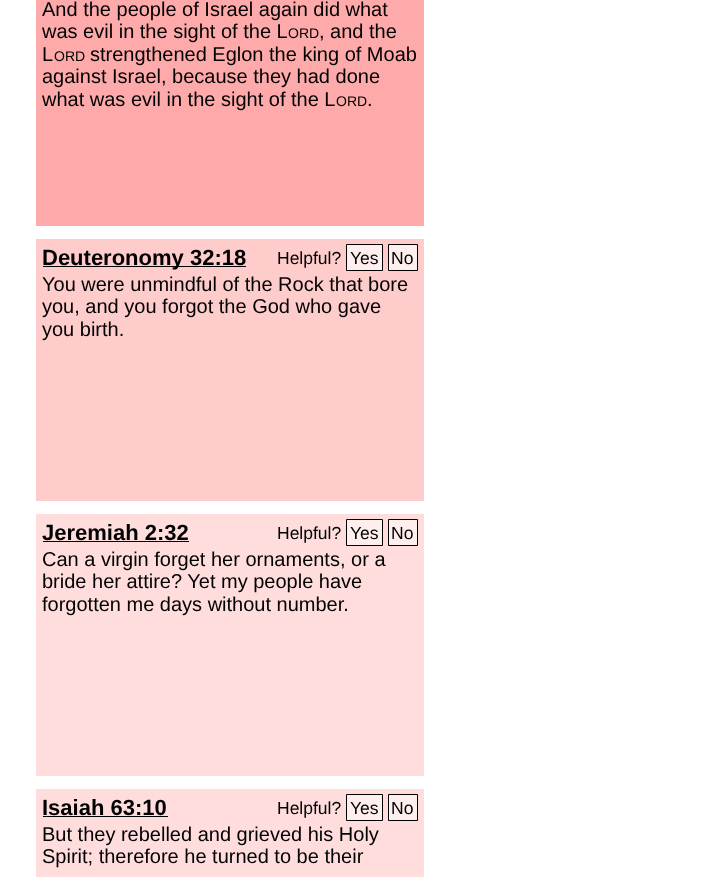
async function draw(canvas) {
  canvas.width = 723;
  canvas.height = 877;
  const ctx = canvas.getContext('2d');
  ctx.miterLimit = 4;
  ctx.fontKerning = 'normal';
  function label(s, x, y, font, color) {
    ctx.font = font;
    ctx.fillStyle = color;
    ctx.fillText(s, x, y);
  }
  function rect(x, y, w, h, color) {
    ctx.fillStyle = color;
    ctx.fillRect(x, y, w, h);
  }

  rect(0, 0, 723, 877, '#fff');
  rect(36, 0, 388, 226, '#faa');
  label('And the people of Israel again did what', 42, 16, '20px Liberation Sans', '#000');
  label('was evil in the sight of the L', 42, 38, '20px Liberation Sans', '#000');
  label('ORD', 288, 38, '14px Liberation Sans', '#000');
  label(', and the', 319, 38, '20px Liberation Sans', '#000');
  label('L', 42, 61, '20px Liberation Sans', '#000');
  label('ORD', 54, 61, '14px Liberation Sans', '#000');
  label('strengthened Eglon the king of Moab', 90, 61, '20px Liberation Sans', '#000');
  label('against Israel, because they had done', 42, 83, '20px Liberation Sans', '#000');
  label('what was evil in the sight of the L', 42, 106, '20px Liberation Sans', '#000');
  label('ORD', 336, 106, '14px Liberation Sans', '#000');
  label('.', 367, 106, '20px Liberation Sans', '#000');
  rect(36, 239, 388, 262, '#fcc');
  rect(43, 266, 203, 1, '#000');
  label('Deuteronomy 32:18', 42, 265, 'bold 22px Liberation Sans', '#000');
  label('Helpful?', 277, 264, '17.5px Liberation Sans', '#000');
  ctx.fillStyle = '#fee';
  ctx.beginPath();
  ctx.rect(346.5, 244.5, 36, 26);
  ctx.fill();
  ctx.strokeStyle = '#000';
  ctx.stroke();
  label('Yes', 350, 264, '17.5px Liberation Sans', '#000');
  ctx.fillStyle = '#fee';
  ctx.beginPath();
  ctx.rect(388.5, 244.5, 29, 26);
  ctx.fill();
  ctx.stroke();
  label('No', 391, 264, '17.5px Liberation Sans', '#000');
  label('You were unmindful of the Rock that bore', 42, 291, '20px Liberation Sans', '#000');
  label('you, and you forgot the God who gave', 42, 313, '20px Liberation Sans', '#000');
  label('you birth.', 42, 336, '20px Liberation Sans', '#000');
  rect(36, 514, 388, 262, '#fdd');
  label('Jeremiah 2:32', 42, 540, 'bold 22px Liberation Sans', '#000');
  rect(43, 541, 146, 1, '#000');
  label('Helpful?', 277, 539, '17.5px Liberation Sans', '#000');
  ctx.fillStyle = '#fee';
  ctx.beginPath();
  ctx.rect(346.5, 519.5, 36, 26);
  ctx.fill();
  ctx.stroke();
  label('Yes', 350, 539, '17.5px Liberation Sans', '#000');
  ctx.fillStyle = '#fee';
  ctx.beginPath();
  ctx.rect(388.5, 519.5, 29, 26);
  ctx.fill();
  ctx.stroke();
  label('No', 391, 539, '17.5px Liberation Sans', '#000');
  label('Can a virgin forget her ornaments, or a', 42, 566, '20px Liberation Sans', '#000');
  label('bride her attire? Yet my people have', 42, 588, '20px Liberation Sans', '#000');
  label('forgotten me days without number.', 42, 611, '20px Liberation Sans', '#000');
  rect(36, 789, 388, 88, '#fdd');
  label('Isaiah 63:10', 42, 815, 'bold 22px Liberation Sans', '#000');
  rect(43, 816, 125, 1, '#000');
  label('Helpful?', 277, 814, '17.5px Liberation Sans', '#000');
  ctx.fillStyle = '#fee';
  ctx.beginPath();
  ctx.rect(346.5, 794.5, 36, 26);
  ctx.fill();
  ctx.stroke();
  label('Yes', 350, 814, '17.5px Liberation Sans', '#000');
  ctx.fillStyle = '#fee';
  ctx.beginPath();
  ctx.rect(388.5, 794.5, 29, 26);
  ctx.fill();
  ctx.stroke();
  label('No', 391, 814, '17.5px Liberation Sans', '#000');
  label('But they rebelled and grieved his Holy', 42, 841, '20px Liberation Sans', '#000');
  label('Spirit; therefore he turned to be their', 42, 863, '20px Liberation Sans', '#000');
}

draw(document.querySelector('canvas'));
